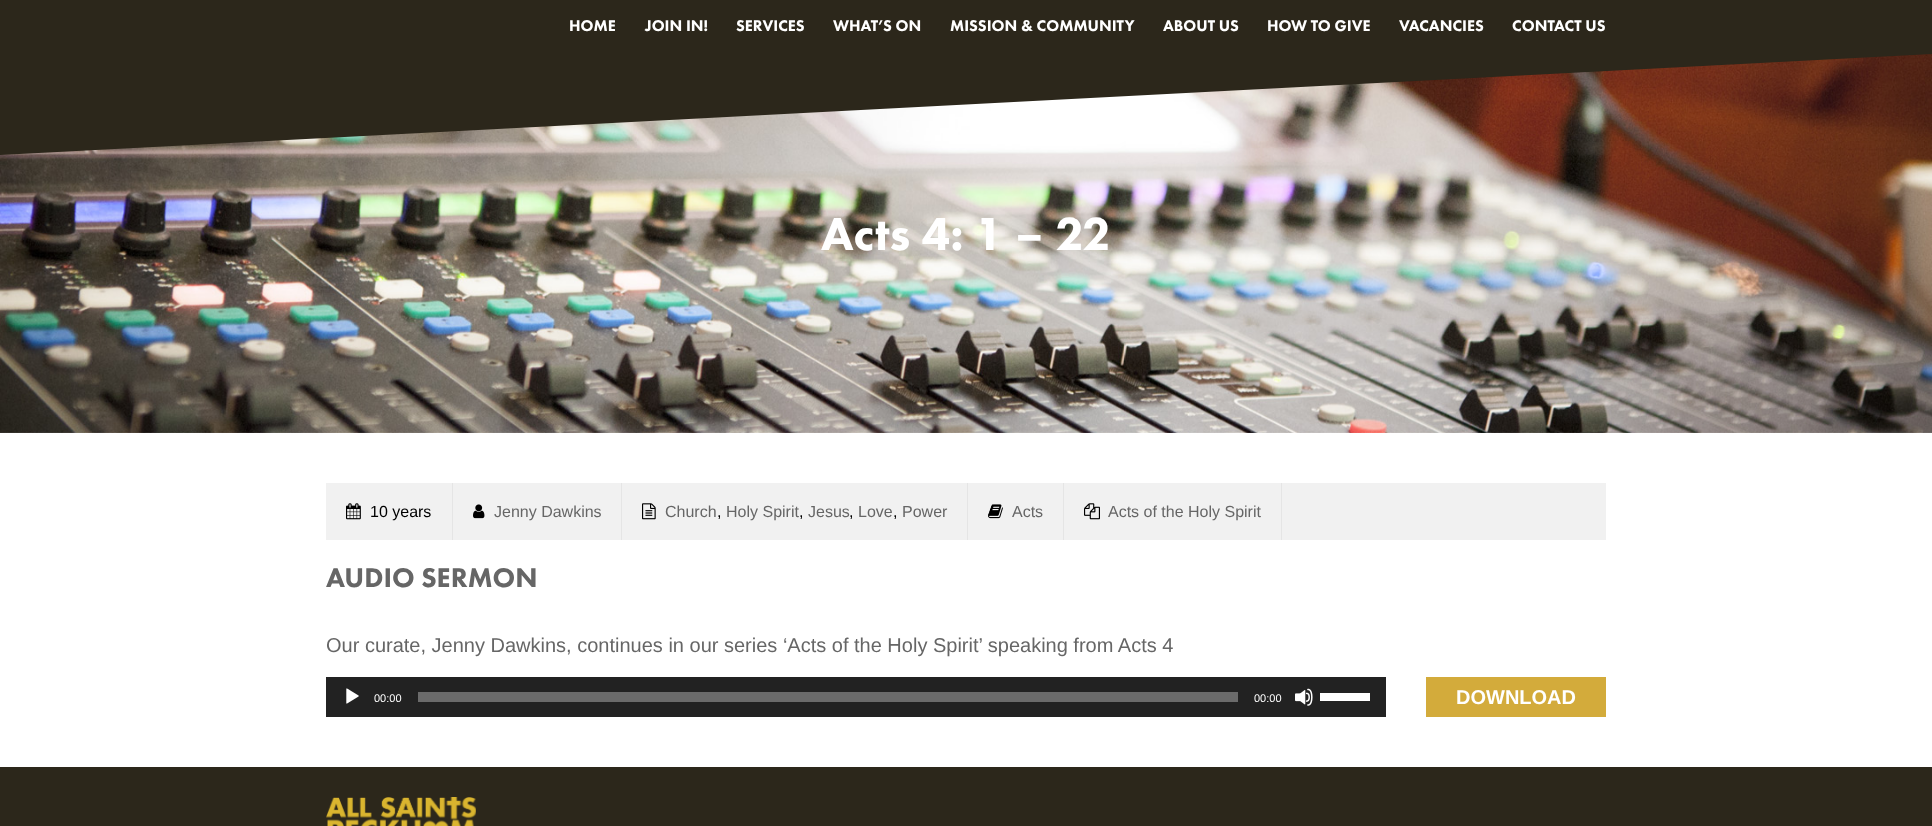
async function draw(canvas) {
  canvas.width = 1932;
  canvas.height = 826;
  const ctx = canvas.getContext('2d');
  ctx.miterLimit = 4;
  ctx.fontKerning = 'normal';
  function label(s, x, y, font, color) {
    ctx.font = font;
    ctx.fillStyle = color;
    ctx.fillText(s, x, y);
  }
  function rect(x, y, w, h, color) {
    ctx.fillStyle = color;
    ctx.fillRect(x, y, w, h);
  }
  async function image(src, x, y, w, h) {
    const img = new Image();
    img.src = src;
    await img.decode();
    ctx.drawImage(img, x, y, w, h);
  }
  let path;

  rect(0, 0, 1932, 826, '#fff');
  await image('assets/img1.png', 0, 54, 1932, 379);
  ctx.fillStyle = '#2c271b';
  path = new Path2D('M0-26L1932-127V54L0 155Z');
  ctx.fill(path);
  label('HOME', 569, 31, '900 16px Futura PT', '#fff');
  label('JOIN IN!', 645, 31, '900 16px Futura PT', '#fff');
  label('SERVICES', 736, 31, '900 16px Futura PT', '#fff');
  label('WHAT’S ON', 833, 31, '900 16px Futura PT', '#fff');
  label('MISSION & COMMUNITY', 950, 31, '900 16px Futura PT', '#fff');
  label('ABOUT US', 1163, 31, '900 16px Futura PT', '#fff');
  label('HOW TO GIVE', 1267, 31, '900 16px Futura PT', '#fff');
  label('VACANCIES', 1399, 31, '900 16px Futura PT', '#fff');
  label('CONTACT US', 1512, 31, '900 16px Futura PT', '#fff');
  label('Acts 4: 1 – 22', 821, 250, '900 48px Futura PT', '#fff');
  rect(326, 483, 1280, 57, '#f1f1f1');
  rect(452, 483, 1, 57, '#e5e5e5');
  await image('assets/img2.png', 346, 503, 15, 17);
  label('10 years', 370, 517, '16px Liberation Sans', '#000');
  rect(621, 483, 1, 57, '#e5e5e5');
  await image('assets/img3.png', 473, 504, 12, 15);
  label('Jenny Dawkins', 494, 517, '16px Liberation Sans', '#666');
  rect(967, 483, 1, 57, '#e5e5e5');
  await image('assets/img4.png', 642, 503, 14, 17);
  label('Church', 665, 517, '16px Liberation Sans', '#666');
  label(',', 717, 517, '16px Liberation Sans', '#000');
  label('Holy Spirit', 726, 517, '16px Liberation Sans', '#666');
  label(',', 799, 517, '16px Liberation Sans', '#000');
  label('Jesus', 808, 517, '16px Liberation Sans', '#666');
  label(',', 849, 517, '16px Liberation Sans', '#000');
  label('Love', 858, 517, '16px Liberation Sans', '#666');
  label(',', 893, 517, '16px Liberation Sans', '#000');
  label('Power', 902, 517, '16px Liberation Sans', '#666');
  rect(1063, 483, 1, 57, '#e5e5e5');
  await image('assets/img5.png', 988, 504, 15, 15);
  label('Acts', 1012, 517, '16px Liberation Sans', '#666');
  rect(1281, 483, 1, 57, '#e5e5e5');
  await image('assets/img6.png', 1084, 503, 16, 17);
  label('Acts of the Holy Spirit', 1108, 517, '16px Liberation Sans', '#666');
  label('AUDIO SERMON', 326, 587, '900 28px Futura PT', '#666');
  label('Our curate, Jenny Dawkins, continues in our series ‘Acts of the Holy Spirit’ speaking from Acts 4', 326, 652, '20px Liberation Sans', '#666');
  rect(326, 677, 1060, 40, '#222');
  await image('assets/img7.png', 346, 688, 13, 16);
  label('00:00', 374, 702, '11px Liberation Sans', '#fff');
  rect(418, 692, 820, 10, '#6b6b6b');
  label('00:00', 1254, 702, '11px Liberation Sans', '#fff');
  await image('assets/img8.png', 1295, 688, 18, 18);
  rect(1320, 693, 50, 8, '#fff');
  rect(1426, 677, 180, 40, '#d3ab3b');
  label('DOWNLOAD', 1456, 704, 'bold 20px Liberation Sans', '#fff');
  rect(0, 767, 1932, 59, '#2c271b');
  await image('assets/img9.png', 326, 797, 150, 29);
}

draw(document.querySelector('canvas'));
